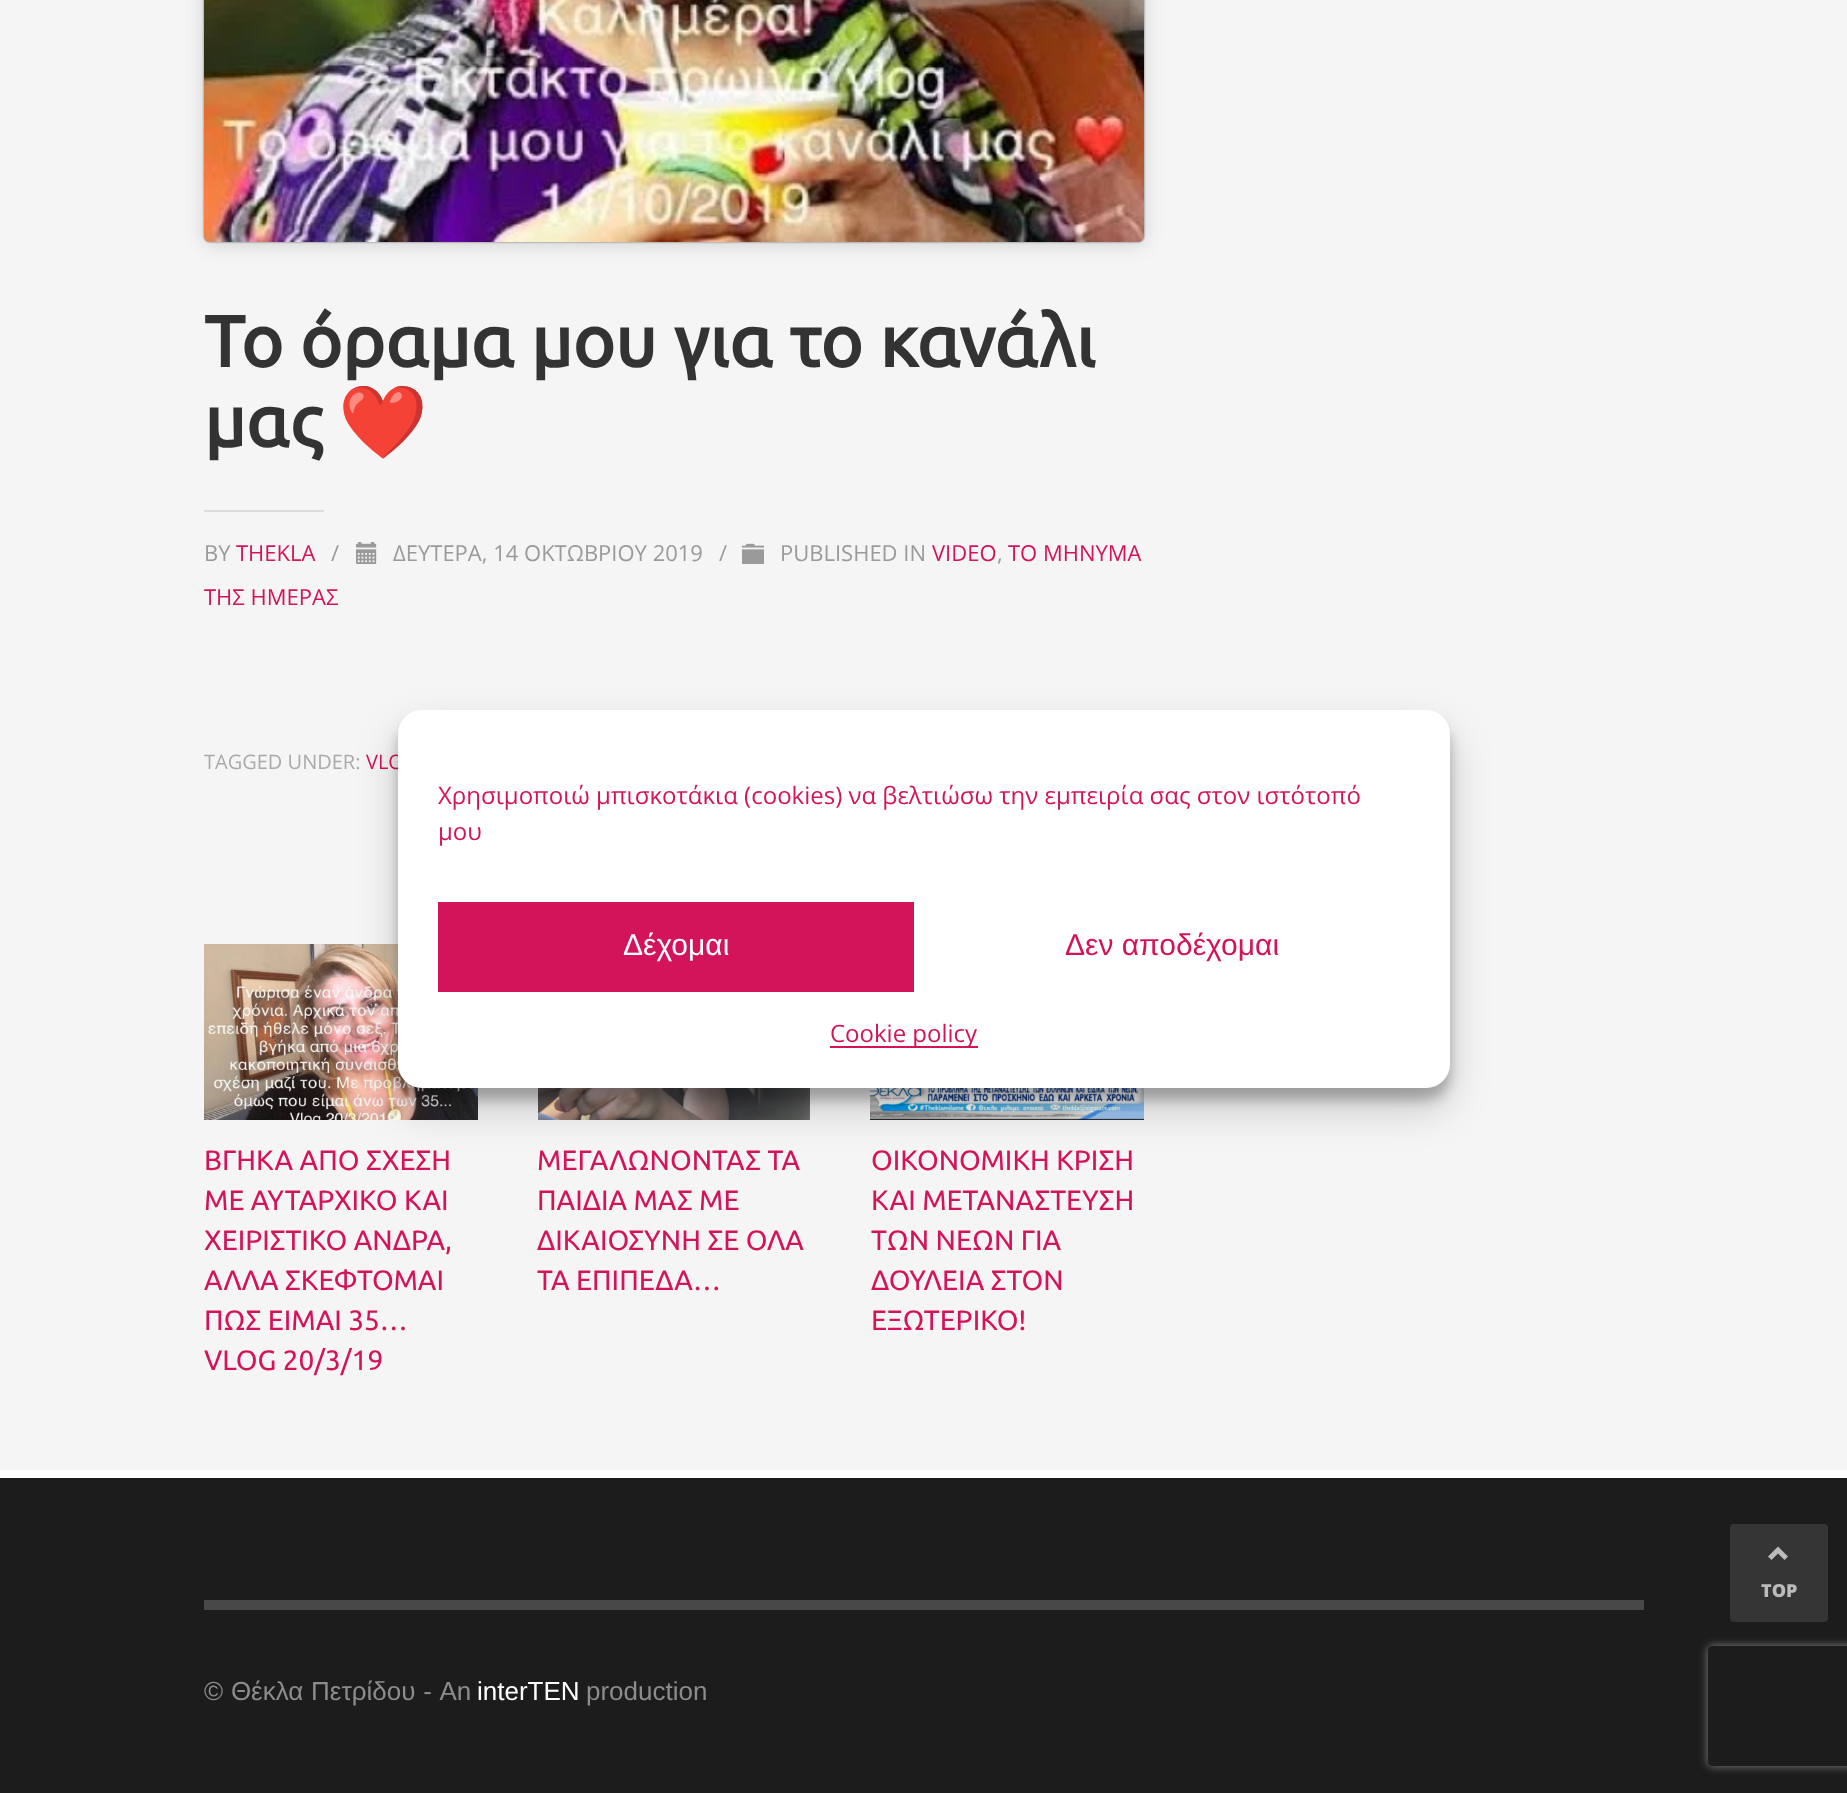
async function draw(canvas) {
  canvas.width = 1847;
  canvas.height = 1793;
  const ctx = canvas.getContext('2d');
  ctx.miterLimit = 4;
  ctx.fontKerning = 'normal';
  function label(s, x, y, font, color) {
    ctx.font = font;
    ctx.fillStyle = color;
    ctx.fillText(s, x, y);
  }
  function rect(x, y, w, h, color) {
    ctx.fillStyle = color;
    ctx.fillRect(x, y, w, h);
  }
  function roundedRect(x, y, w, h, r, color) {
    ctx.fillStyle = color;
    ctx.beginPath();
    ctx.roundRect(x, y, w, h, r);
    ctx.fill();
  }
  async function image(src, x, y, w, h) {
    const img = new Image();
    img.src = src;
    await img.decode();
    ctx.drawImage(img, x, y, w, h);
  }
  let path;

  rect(0, 0, 1847, 1793, '#f5f5f5');
  ctx.fillStyle = '#00000026';
  ctx.filter = 'blur(10px)';
  ctx.beginPath();
  ctx.roundRect(204, -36, 940, 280, 6);
  ctx.fill();
  ctx.filter = 'none';
  ctx.fillStyle = '#00000080';
  ctx.filter = 'blur(1px)';
  ctx.beginPath();
  ctx.roundRect(204, -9, 940, 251, 6);
  ctx.fill();
  ctx.filter = 'none';
  await image('assets/img1.png', 204, 0, 940, 242);
  label('Το όραμα μου για το κανάλι', 204, 367, 'bold 72px Ubuntu', '#333');
  label('μας', 204, 447, 'bold 72px Ubuntu', '#333');
  label('❤️', 338, 447, 'bold 72px Noto Color Emoji', '#333');
  rect(204, 510, 120, 2, '#ddd');
  label('BY', 204, 561, '22px Open Sans', '#9a9a9a');
  label('THEKLA', 236, 561, '22px Open Sans', '#d3145a');
  label('/', 331, 561, '22px Open Sans', '#9a9a9a');
  await image('assets/img2.png', 356, 542, 21, 22);
  label('ΔΕΥΤΕΡΑ, 14 ΟΚΤΩΒΡΙΟΥ 2019', 393, 561, '22px Open Sans', '#9a9a9a');
  label('/', 719, 561, '22px Open Sans', '#9a9a9a');
  await image('assets/img3.png', 742, 543, 22, 21);
  label('PUBLISHED IN', 780, 561, '22px Open Sans', '#9a9a9a');
  label('VIDEO', 932, 561, '22px Open Sans', '#d3145a');
  label(',', 997, 561, '22px Open Sans', '#9a9a9a');
  label('ΤΟ ΜΗΝΥΜΑ', 1008, 561, '22px Open Sans', '#d3145a');
  label('ΤΗΣ ΗΜΕΡΑΣ', 204, 605, '22px Open Sans', '#d3145a');
  label('TAGGED UNDER:', 204, 769, '20px Open Sans', '#aaa');
  label('VLO', 366, 769, '20px Open Sans', '#d3145a');
  await image('assets/img4.png', 204, 944, 274, 176);
  label('ΒΓΗΚΑ ΑΠΟ ΣΧΕΣΗ', 204, 1170, '28px Ubuntu', '#d3145a');
  label('ΜΕ ΑΥΤΑΡΧΙΚΟ ΚΑΙ', 204, 1210, '28px Ubuntu', '#d3145a');
  label('ΧΕΙΡΙΣΤΙΚΟ ΑΝΔΡΑ,', 204, 1250, '28px Ubuntu', '#d3145a');
  label('ΑΛΛΑ ΣΚΕΦΤΟΜΑΙ', 204, 1290, '28px Ubuntu', '#d3145a');
  label('ΠΩΣ ΕΙΜΑΙ 35…', 204, 1330, '28px Ubuntu', '#d3145a');
  label('VLOG 20/3/19', 204, 1370, '28px Ubuntu', '#d3145a');
  await image('assets/img5.png', 538, 1088, 272, 32);
  label('ΜΕΓΑΛΩΝΟΝΤΑΣ ΤΑ', 537, 1170, '28px Ubuntu', '#d3145a');
  label('ΠΑΙΔΙΑ ΜΑΣ ΜΕ', 537, 1210, '28px Ubuntu', '#d3145a');
  label('ΔΙΚΑΙΟΣΥΝΗ ΣΕ ΟΛΑ', 537, 1250, '28px Ubuntu', '#d3145a');
  label('ΤΑ ΕΠΙΠΕΔΑ…', 537, 1290, '28px Ubuntu', '#d3145a');
  await image('assets/img6.png', 870, 1088, 274, 32);
  label('ΟΙΚΟΝΟΜΙΚΗ ΚΡΙΣΗ', 871, 1170, '28px Ubuntu', '#d3145a');
  label('ΚΑΙ ΜΕΤΑΝΑΣΤΕΥΣΗ', 871, 1210, '28px Ubuntu', '#d3145a');
  label('ΤΩΝ ΝΕΩΝ ΓΙΑ', 871, 1250, '28px Ubuntu', '#d3145a');
  label('ΔΟΥΛΕΙΑ ΣΤΟΝ', 871, 1290, '28px Ubuntu', '#d3145a');
  label('ΕΞΩΤΕΡΙΚΟ!', 871, 1330, '28px Ubuntu', '#d3145a');
  rect(0, 1478, 1847, 315, '#1c1c1c');
  rect(0, 1470, 1847, 8, '#fff');
  rect(204, 1600, 1440, 10, '#484848');
  ctx.wordSpacing = '0.5px';
  label('© Θέκλα Πετρίδου - An', 204, 1700, '26px Liberation Sans', '#8b8c8d');
  ctx.wordSpacing = '0px';
  label('interTEN', 477, 1700, '26px Liberation Sans', '#fff');
  label('production', 586, 1700, '26px Liberation Sans', '#8b8c8d');
  ctx.fillStyle = '#0000003b';
  ctx.filter = 'blur(6px)';
  ctx.beginPath();
  ctx.roundRect(398, 722, 1052, 378, 24);
  ctx.fill();
  ctx.filter = 'none';
  ctx.fillStyle = '#00000030';
  ctx.filter = 'blur(20px)';
  ctx.beginPath();
  ctx.roundRect(398, 730, 1052, 378, 24);
  ctx.fill();
  ctx.filter = 'none';
  roundedRect(398, 710, 1052, 378, 24, '#fff');
  label('Χρησιμοποιώ μπισκοτάκια (cookies) να βελτιώσω την εμπειρία σας στον ιστότοπό', 438, 804, '24px Open Sans', '#d3145a');
  label('μου', 438, 840, '24px Open Sans', '#d3145a');
  rect(438, 902, 476, 90, '#d3145a');
  label('Δέχομαι', 623, 955, '30px Liberation Sans', '#fff');
  label('Δεν αποδέχομαι', 1065, 955, '30px Liberation Sans', '#d3145a');
  rect(830, 1046, 148, 2, '#d3145a');
  label('Cookie policy', 830, 1042, '24px Open Sans', '#d3145a');
  roundedRect(1730, 1524, 98, 98, 4, '#353535');
  ctx.fillStyle = '#bbb';
  path = new Path2D('M1778 1546.5L1788 1556.5L1784.5 1560L1778 1553.5L1771.5 1560L1768 1556.5Z');
  ctx.fill(path);
  label('TOP', 1761, 1597, '800 18px Open Sans', '#bbb');
  ctx.save();
  path = new Path2D('M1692 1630H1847V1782H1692ZM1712 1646H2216C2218 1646 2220 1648 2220 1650V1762C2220 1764 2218 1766 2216 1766H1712C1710 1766 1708 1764 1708 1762V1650C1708 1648 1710 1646 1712 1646Z');
  ctx.clip(path, 'evenodd');
  ctx.fillStyle = '#808080';
  ctx.filter = 'blur(5px)';
  ctx.beginPath();
  ctx.roundRect(1708, 1646, 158, 120, 4);
  ctx.fill();
  ctx.filter = 'none';
  ctx.restore();
}

draw(document.querySelector('canvas'));
